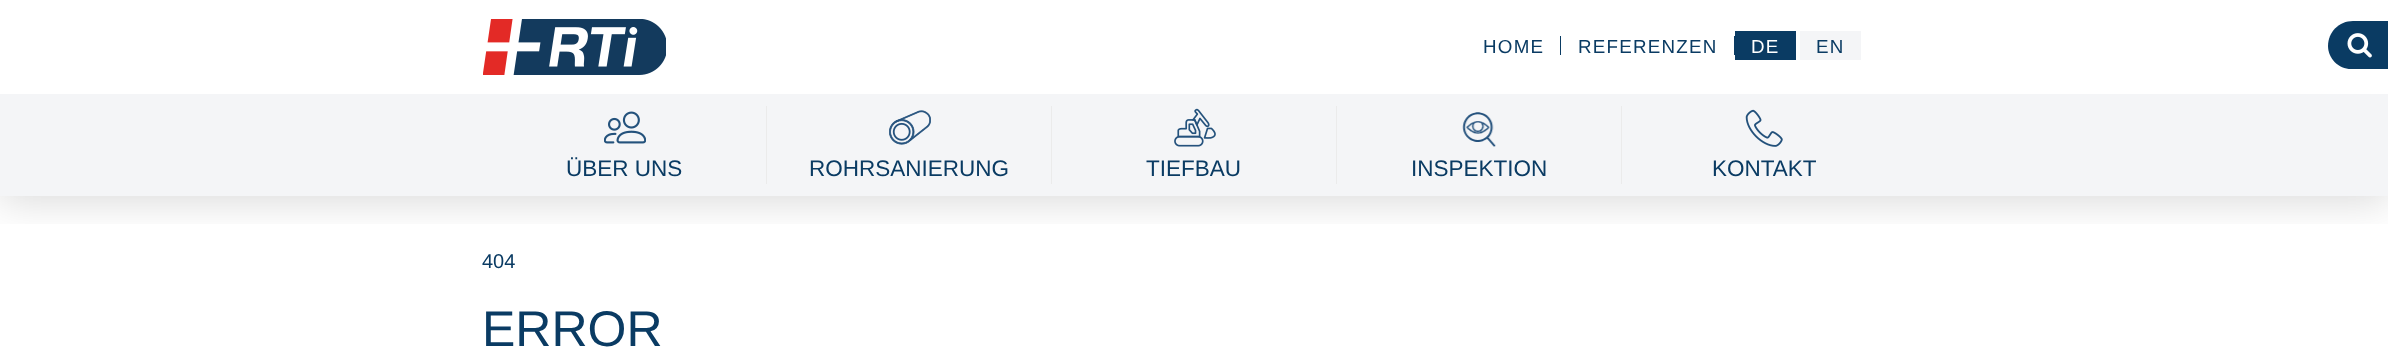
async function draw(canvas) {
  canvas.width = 2388;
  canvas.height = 360;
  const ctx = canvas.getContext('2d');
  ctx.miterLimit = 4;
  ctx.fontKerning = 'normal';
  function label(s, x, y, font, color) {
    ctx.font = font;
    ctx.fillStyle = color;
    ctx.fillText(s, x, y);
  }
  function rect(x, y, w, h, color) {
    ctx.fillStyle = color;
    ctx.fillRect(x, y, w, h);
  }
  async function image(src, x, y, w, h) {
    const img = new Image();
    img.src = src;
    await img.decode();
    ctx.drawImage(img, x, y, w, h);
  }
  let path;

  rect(0, 0, 2388, 360, '#fff');
  ctx.save();
  ctx.beginPath();
  ctx.rect(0, 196, 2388, 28);
  ctx.clip();
  ctx.fillStyle = '#00000026';
  ctx.filter = 'blur(20.5px)';
  ctx.beginPath();
  ctx.rect(-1, 3, 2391, 198);
  ctx.fill();
  ctx.filter = 'none';
  ctx.restore();
  await image('assets/img1.png', 483, 19, 183, 56);
  rect(1560, 36, 1, 19, '#0a3b63');
  ctx.letterSpacing = '1.25px';
  label('HOME', 1483, 53, '18.75px Liberation Sans', '#0a3b63');
  rect(1734, 36, 1, 19, '#0a3b63');
  label('REFERENZEN', 1578, 53, '18.75px Liberation Sans', '#0a3b63');
  rect(1735, 31, 61, 29, '#0a3b63');
  label('DE', 1751, 53, '18.75px Liberation Sans', '#fff');
  rect(1800, 31, 61, 29, '#f4f5f7');
  label('EN', 1816, 53, '18.75px Liberation Sans', '#0a3b63');
  path = new Path2D('M2353 21H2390V69H2351C2338.5 69 2328 58.5 2328 46C2328 32 2339 21 2353 21Z');
  ctx.fill(path);
  await image('assets/img2.png', 2347, 33, 25, 25);
  rect(0, 94, 2388, 102, '#f4f5f7');
  await image('assets/img3.png', 604, 111, 42, 33);
  rect(766, 106, 1, 78, '#ebebeb');
  ctx.letterSpacing = '0px';
  label('ÜBER UNS', 566, 176, '22.5px Liberation Sans', '#0a3b63');
  await image('assets/img4.png', 889, 110, 42, 35);
  rect(1051, 106, 1, 78, '#ebebeb');
  label('ROHRSANIERUNG', 809, 176, '22.5px Liberation Sans', '#0a3b63');
  await image('assets/img5.png', 1174, 108, 42, 39);
  rect(1336, 106, 1, 78, '#ebebeb');
  label('TIEFBAU', 1146, 176, '22.5px Liberation Sans', '#0a3b63');
  await image('assets/img6.png', 1462, 112, 34, 35);
  rect(1621, 106, 1, 78, '#ebebeb');
  label('INSPEKTION', 1411, 176, '22.5px Liberation Sans', '#0a3b63');
  await image('assets/img7.png', 1745, 109, 38, 38);
  label('KONTAKT', 1712, 176, '22.5px Liberation Sans', '#0a3b63');
  label('404', 482, 268, '20px Liberation Sans', '#0a3b63');
  label('ERROR', 482, 346, '50px Liberation Sans', '#0a3b63');
}

draw(document.querySelector('canvas'));
